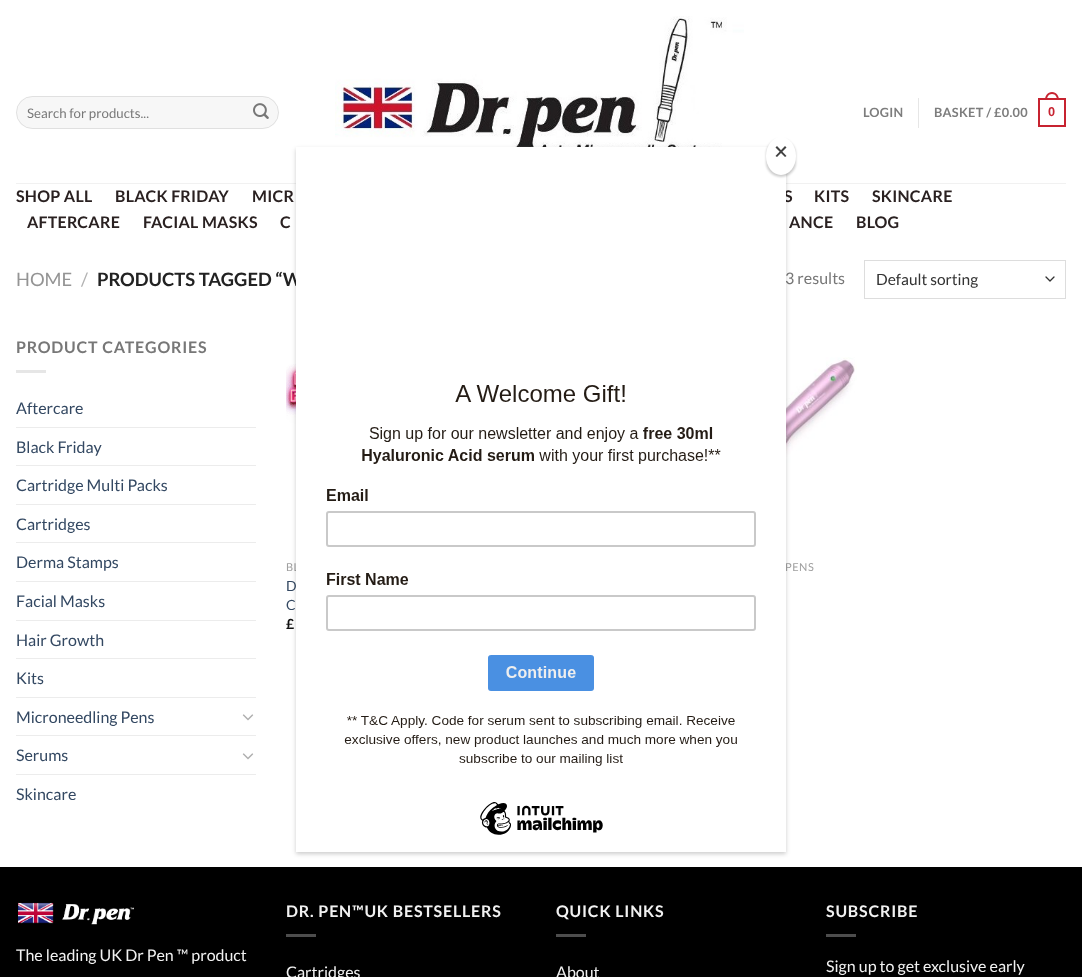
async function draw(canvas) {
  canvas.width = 1082;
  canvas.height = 977;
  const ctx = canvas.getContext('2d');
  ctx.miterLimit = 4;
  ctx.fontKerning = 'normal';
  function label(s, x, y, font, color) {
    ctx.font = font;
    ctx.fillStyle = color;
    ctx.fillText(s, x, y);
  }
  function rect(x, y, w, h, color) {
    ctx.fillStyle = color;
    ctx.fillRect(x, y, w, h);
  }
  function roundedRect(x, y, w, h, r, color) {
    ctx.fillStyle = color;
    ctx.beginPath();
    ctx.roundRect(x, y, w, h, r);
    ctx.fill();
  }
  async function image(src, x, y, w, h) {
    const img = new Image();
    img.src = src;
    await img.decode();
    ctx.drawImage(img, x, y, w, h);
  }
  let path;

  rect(0, 0, 1082, 977, '#fff');
  roundedRect(16, 96, 263, 33, 16.5, '#f7f7f7');
  ctx.beginPath();
  ctx.roundRect(16.5, 96.5, 262, 32, 16);
  ctx.strokeStyle = '#00000017';
  ctx.stroke();
  label('Search for products...', 27, 118, '13.25px Lato', '#777');
  await image('assets/img1.png', 253, 103, 16, 16);
  await image('assets/img2.png', 335, 16, 409, 131);
  ctx.letterSpacing = '0.25px';
  label('LOGIN', 863, 117, 'bold 12.75px Lato', '#7d7d7d');
  rect(918, 98, 1, 30, '#e6e6e6');
  label('BASKET / £0.00', 934, 117, 'bold 12.75px Lato', '#7d7d7d');
  ctx.strokeStyle = '#c72330';
  ctx.lineWidth = 2;
  ctx.strokeRect(1039, 99, 26, 27);
  ctx.fillStyle = '#c72330';
  path = new Path2D('M1052 92C1056.5 92 1059 96 1059 100H1045C1045 96 1047.5 92 1052 92ZM1052 94C1055.5 94 1057 97 1057 100H1047C1047 97 1048.5 94 1052 94Z');
  ctx.fill(path, 'evenodd');
  label('0', 1048, 116, 'bold 12.75px Liberation Sans', '#c72330');
  rect(16, 183, 1050, 1, '#f1f1f1');
  label('SHOP ALL', 16, 202, 'bold 16px Lato', '#2a2121');
  label('BLACK FRIDAY', 115, 202, 'bold 16px Lato', '#2a2121');
  label('MICR', 252, 202, 'bold 16px Lato', '#2a2121');
  label('S', 784, 202, 'bold 16px Lato', '#2a2121');
  label('KITS', 814, 202, 'bold 16px Lato', '#2a2121');
  label('SKINCARE', 872, 202, 'bold 16px Lato', '#2a2121');
  label('AFTERCARE', 27, 228, 'bold 16px Lato', '#2a2121');
  label('FACIAL MASKS', 143, 228, 'bold 16px Lato', '#2a2121');
  label('C', 280, 228, 'bold 16px Lato', '#2a2121');
  label('ANCE', 789, 228, 'bold 16px Lato', '#2a2121');
  label('BLOG', 856, 228, 'bold 16px Lato', '#2a2121');
  ctx.letterSpacing = '0px';
  label('HOME', 16, 286, '18.4px Lato', '#949494');
  label('/', 81, 286, '18.4px Lato', '#b2b2b2');
  label('PRODUCTS TAGGED “W', 97, 286, 'bold 18.4px Lato', '#222');
  label('3 results', 785, 284, '16px Lato', '#777');
  path = new Path2D('M1046 277L1050 281L1054 277');
  ctx.strokeStyle = '#333';
  ctx.lineWidth = 1.3;
  ctx.lineCap = 'round';
  ctx.lineJoin = 'round';
  ctx.stroke(path);
  ctx.strokeStyle = '#ddd';
  ctx.lineWidth = 1;
  ctx.lineJoin = 'miter';
  ctx.strokeRect(864.5, 260.5, 201, 38);
  label('Default sorting', 876, 285, '15.5px Lato', '#333');
  ctx.letterSpacing = '0.8px';
  label('PRODUCT CATEGORIES', 16, 353, 'bold 16px Lato', '#777');
  rect(16, 370, 30, 3, '#e6e6e6');
  ctx.letterSpacing = '0px';
  label('Aftercare', 16, 414, '16px Lato', '#334862');
  rect(16, 427, 240, 1, '#ececec');
  label('Black Friday', 16, 453, '16px Lato', '#334862');
  rect(16, 465, 240, 1, '#ececec');
  label('Cartridge Multi Packs', 16, 491, '16px Lato', '#334862');
  rect(16, 504, 240, 1, '#ececec');
  label('Cartridges', 16, 530, '16px Lato', '#334862');
  rect(16, 542, 240, 1, '#ececec');
  label('Derma Stamps', 16, 568, '16px Lato', '#334862');
  rect(16, 581, 240, 1, '#ececec');
  label('Facial Masks', 16, 607, '16px Lato', '#334862');
  rect(16, 620, 240, 1, '#ececec');
  label('Hair Growth', 16, 646, '16px Lato', '#334862');
  rect(16, 658, 240, 1, '#ececec');
  label('Kits', 16, 684, '16px Lato', '#334862');
  rect(16, 697, 240, 1, '#ececec');
  label('Microneedling Pens', 16, 723, '16px Lato', '#334862');
  await image('assets/img3.png', 242, 714, 12, 7);
  rect(16, 735, 240, 1, '#ececec');
  label('Serums', 16, 761, '16px Lato', '#334862');
  await image('assets/img3.png', 242, 753, 12, 7);
  rect(16, 774, 240, 1, '#ececec');
  label('Skincare', 16, 800, '16px Lato', '#334862');
  await image('assets/img4.png', 286, 349, 10, 176);
  ctx.letterSpacing = '0.5px';
  label('BL', 286, 571, '11px Lato', '#a0a0a0');
  ctx.letterSpacing = '0px';
  label('D', 286, 591, '14px Lato', '#334862');
  label('C', 286, 610, '14px Lato', '#334862');
  label('£', 286, 629, 'bold 14px Lato', '#111');
  await image('assets/img5.png', 786, 357, 71, 155);
  ctx.letterSpacing = '0.5px';
  label('PENS', 785, 571, '11px Lato', '#a0a0a0');
  rect(0, 867, 1082, 110, '#000');
  await image('assets/img6.png', 18, 902, 116, 23);
  ctx.letterSpacing = '0px';
  label('The leading UK Dr Pen ™ product', 16, 961, '16px Lato', '#f1f1f1');
  ctx.letterSpacing = '0.8px';
  label('DR. PEN™UK BESTSELLERS', 286, 917, 'bold 16px Lato', '#f1f1f1');
  rect(286, 934, 30, 3, '#4d4d4d');
  ctx.letterSpacing = '0px';
  label('Cartridges', 286, 978, '16px Lato', '#f1f1f1');
  ctx.letterSpacing = '0.8px';
  label('QUICK LINKS', 556, 917, 'bold 16px Lato', '#f1f1f1');
  rect(556, 934, 30, 3, '#4d4d4d');
  ctx.letterSpacing = '0px';
  label('About', 556, 978, '16px Lato', '#f1f1f1');
  ctx.letterSpacing = '0.8px';
  label('SUBSCRIBE', 826, 917, 'bold 16px Lato', '#f1f1f1');
  rect(826, 934, 30, 3, '#4d4d4d');
  ctx.letterSpacing = '0px';
  label('Sign up to get exclusive early', 826, 972, '16px Lato', '#f1f1f1');
  ctx.save();
  path = new Path2D('M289 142H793V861H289ZM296 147H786V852H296Z');
  ctx.clip(path, 'evenodd');
  ctx.fillStyle = '#00000033';
  ctx.filter = 'blur(2px)';
  ctx.beginPath();
  ctx.rect(296, 149, 490, 705);
  ctx.fill();
  ctx.filter = 'none';
  ctx.restore();
  await image('assets/img7.png', 296, 147, 490, 688);
  ctx.fillStyle = '#00000033';
  ctx.filter = 'blur(1px)';
  ctx.beginPath();
  ctx.roundRect(766, 139, 30, 38, 15);
  ctx.fill();
  ctx.filter = 'none';
  ctx.fillStyle = '#fff';
  ctx.beginPath();
  ctx.ellipse(781, 156, 15, 19, 0, 0, 2 * Math.PI);
  ctx.fill();
  ctx.fillStyle = '#414141';
  path = new Path2D('M785 146L786.5 147.5L777 157L775.5 156Z');
  ctx.fill(path);
  path = new Path2D('M775.5 147.5L777 146L786.5 156L785 157Z');
  ctx.fill(path);
}

draw(document.querySelector('canvas'));
